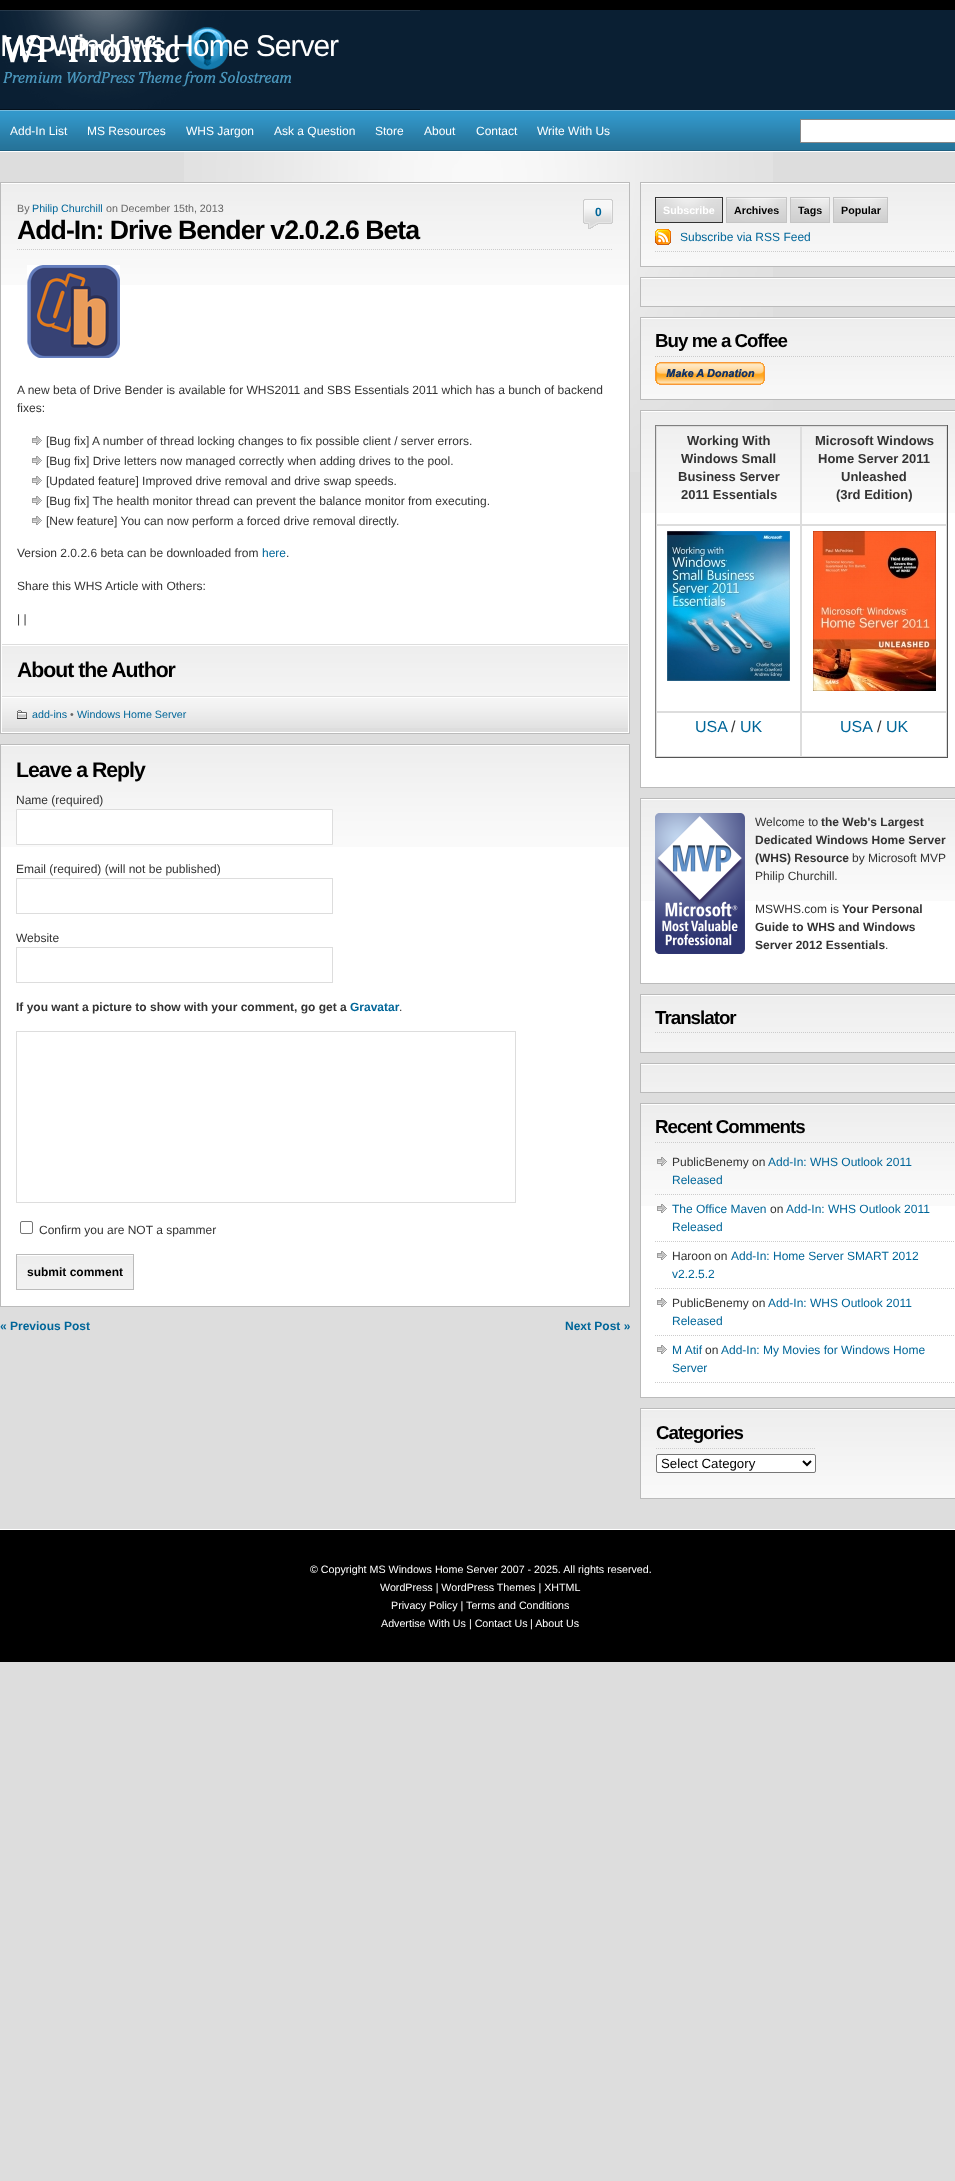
async function draw(canvas) {
  canvas.width = 955;
  canvas.height = 2181;
  const ctx = canvas.getContext('2d');
  ctx.miterLimit = 4;
  ctx.fontKerning = 'normal';
  function label(s, x, y, font, color) {
    ctx.font = font;
    ctx.fillStyle = color;
    ctx.fillText(s, x, y);
  }
  function rect(x, y, w, h, color) {
    ctx.fillStyle = color;
    ctx.fillRect(x, y, w, h);
  }
  async function image(src, x, y, w, h) {
    const img = new Image();
    img.src = src;
    await img.decode();
    ctx.drawImage(img, x, y, w, h);
  }
  let path;

  rect(0, 0, 955, 2181, '#ddd');
  rect(420, 10, 535, 100, '#0a1f33');
  rect(0, 0, 955, 10, '#000');
  await image('assets/img1.png', 0, 10, 420, 100);
  ctx.letterSpacing = '-1px';
  label('MS Windows Home Server', 0, 56, '30px Liberation Sans', '#fff');
  await image('assets/img2.png', 0, 110, 955, 41);
  ctx.letterSpacing = '0px';
  label('Add-In List', 10, 135, '12px Liberation Sans', '#fff');
  label('MS Resources', 87, 135, '12px Liberation Sans', '#fff');
  label('WHS Jargon', 186, 135, '12px Liberation Sans', '#fff');
  label('Ask a Question', 274, 135, '12px Liberation Sans', '#fff');
  label('Store', 375, 135, '12px Liberation Sans', '#fff');
  label('About', 424, 135, '12px Liberation Sans', '#fff');
  label('Contact', 476, 135, '12px Liberation Sans', '#fff');
  label('Write With Us', 537, 135, '12px Liberation Sans', '#fff');
  rect(801, 120, 154, 22, '#fff');
  rect(800, 119, 155, 1, '#888');
  rect(800, 142, 155, 1, '#888');
  rect(800, 119, 1, 24, '#888');
  await image('assets/img3.png', 184, 152, 589, 320);
  rect(0, 151, 955, 1, '#fff');
  rect(1, 183, 628, 550, '#fff');
  await image('assets/img4.png', 1, 184, 628, 101);
  ctx.strokeStyle = '#bbb';
  ctx.strokeRect(0.5, 182.5, 629, 551);
  label('By', 17, 212, '10.7px Liberation Sans', '#666');
  label('Philip Churchill', 32, 212, '10.7px Liberation Sans', '#069');
  label('on December 15th, 2013', 106, 212, '10.7px Liberation Sans', '#666');
  await image('assets/img5.png', 583, 199, 30, 30);
  label('0', 595, 216, 'bold 12px Liberation Sans', '#069');
  path = new Path2D('M17 249.5H613');
  ctx.strokeStyle = '#ccc';
  ctx.setLineDash([1, 1]);
  ctx.stroke(path);
  ctx.letterSpacing = '-1px';
  label('Add-In: Drive Bender v2.0.2.6 Beta', 17, 239, 'bold 26.7px Liberation Sans', '#000');
  await image('assets/img6.png', 27, 265, 93, 93);
  ctx.letterSpacing = '0px';
  label('A new beta of Drive Bender is available for WHS2011 and SBS Essentials 2011 which has a bunch of backend', 17, 394, '12px Liberation Sans', '#333');
  label('fixes:', 17, 412, '12px Liberation Sans', '#333');
  await image('assets/img7.png', 32, 436, 10, 9);
  label('[Bug fix] A number of thread locking changes to fix possible client / server errors.', 46, 445, '12px Liberation Sans', '#333');
  await image('assets/img7.png', 32, 456, 10, 9);
  label('[Bug fix] Drive letters now managed correctly when adding drives to the pool.', 46, 465, '12px Liberation Sans', '#333');
  await image('assets/img7.png', 32, 476, 10, 9);
  label('[Updated feature] Improved drive removal and drive swap speeds.', 46, 485, '12px Liberation Sans', '#333');
  await image('assets/img7.png', 32, 496, 10, 9);
  label('[Bug fix] The health monitor thread can prevent the balance monitor from executing.', 46, 505, '12px Liberation Sans', '#333');
  await image('assets/img7.png', 32, 516, 10, 9);
  label('[New feature] You can now perform a forced drive removal directly.', 46, 525, '12px Liberation Sans', '#333');
  label('Version 2.0.2.6 beta can be downloaded from', 17, 557, '12px Liberation Sans', '#333');
  label('here', 262, 557, '12px Liberation Sans', '#069');
  label('.', 286, 557, '12px Liberation Sans', '#333');
  label('Share this WHS Article with Others:', 17, 590, '12px Liberation Sans', '#333');
  label('| |', 17, 623, '12px Liberation Sans', '#333');
  await image('assets/img8.png', 2, 646, 626, 50);
  rect(2, 644, 626, 1, '#ddd');
  ctx.letterSpacing = '-1px';
  label('About the Author', 17, 677, 'bold 21.25px Liberation Sans', '#000');
  rect(2, 696, 626, 36, '#ddd');
  await image('assets/img9.png', 2, 697, 626, 31);
  await image('assets/img10.png', 17, 710, 10, 9);
  ctx.letterSpacing = '0px';
  label('add-ins', 32, 718, '10.7px Liberation Sans', '#069');
  label('•', 70, 718, '10.7px Liberation Sans', '#666');
  label('Windows Home Server', 77, 718, '10.7px Liberation Sans', '#069');
  rect(1, 745, 628, 561, '#fff');
  await image('assets/img4.png', 1, 746, 628, 101);
  ctx.strokeStyle = '#bbb';
  ctx.setLineDash([]);
  ctx.strokeRect(0.5, 744.5, 629, 562);
  ctx.letterSpacing = '-1px';
  label('Leave a Reply', 16, 777, 'bold 21.25px Liberation Sans', '#000');
  ctx.letterSpacing = '0px';
  label('Name (required)', 16, 804, '12px Liberation Sans', '#333');
  ctx.fillStyle = '#fff';
  ctx.beginPath();
  ctx.rect(16.5, 809.5, 316, 35);
  ctx.fill();
  ctx.strokeStyle = '#ddd';
  ctx.stroke();
  label('Email (required) (will not be published)', 16, 873, '12px Liberation Sans', '#333');
  ctx.strokeRect(16.5, 878.5, 316, 35);
  label('Website', 16, 942, '12px Liberation Sans', '#333');
  ctx.strokeRect(16.5, 947.5, 316, 35);
  label('If you want a picture to show with your comment, go get a', 16, 1011, 'bold 12px Liberation Sans', '#333');
  label('Gravatar', 350, 1011, 'bold 12px Liberation Sans', '#069');
  label('.', 399, 1011, '12px Liberation Sans', '#333');
  ctx.strokeRect(16.5, 1031.5, 499, 171);
  ctx.beginPath();
  ctx.roundRect(20.5, 1221.5, 12, 12, 1.5);
  ctx.strokeStyle = '#767676';
  ctx.stroke();
  label('Confirm you are NOT a spammer', 39, 1234, '12px Liberation Sans', '#333');
  await image('assets/img11.png', 17, 1256, 116, 33);
  ctx.strokeStyle = '#bbb';
  ctx.strokeRect(16.5, 1254.5, 117, 35);
  label('submit comment', 27, 1276, 'bold 12px Liberation Sans', '#000');
  label('« Previous Post', 0, 1330, 'bold 12px Liberation Sans', '#069');
  label('Next Post »', 565, 1330, 'bold 12px Liberation Sans', '#069');
  rect(641, 183, 314, 1, '#fff');
  await image('assets/img12.png', 641, 184, 314, 82);
  ctx.strokeRect(640.5, 182.5, 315, 84);
  await image('assets/img13.png', 656, 198, 66, 24);
  ctx.strokeStyle = '#333';
  ctx.strokeRect(655.5, 197.5, 67, 25);
  label('Subscribe', 663, 214, 'bold 10.7px Liberation Sans', '#fff');
  await image('assets/img14.png', 727, 198, 59, 24);
  ctx.strokeStyle = '#c5c5c5';
  ctx.strokeRect(726.5, 197.5, 60, 25);
  label('Archives', 734, 214, 'bold 10.7px Liberation Sans', '#000');
  await image('assets/img15.png', 791, 198, 38, 24);
  ctx.strokeRect(790.5, 197.5, 39, 25);
  label('Tags', 798, 214, 'bold 10.7px Liberation Sans', '#000');
  await image('assets/img16.png', 834, 198, 53, 24);
  ctx.strokeRect(833.5, 197.5, 54, 25);
  label('Popular', 841, 214, 'bold 10.7px Liberation Sans', '#000');
  await image('assets/img17.png', 655, 229, 16, 16);
  path = new Path2D('M655 251.5H955');
  ctx.strokeStyle = '#ccc';
  ctx.setLineDash([1, 1]);
  ctx.stroke(path);
  label('Subscribe via RSS Feed', 680, 241, '12px Liberation Sans', '#069');
  rect(641, 278, 314, 1, '#fff');
  await image('assets/img18.png', 641, 279, 314, 27);
  ctx.strokeStyle = '#bbb';
  ctx.setLineDash([]);
  ctx.strokeRect(640.5, 277.5, 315, 29);
  rect(641, 318, 314, 1, '#fff');
  await image('assets/img19.png', 641, 319, 314, 80);
  ctx.strokeRect(640.5, 317.5, 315, 82);
  path = new Path2D('M655 356.5H955');
  ctx.strokeStyle = '#ccc';
  ctx.setLineDash([1, 1]);
  ctx.stroke(path);
  ctx.letterSpacing = '-1px';
  label('Buy me a Coffee', 655, 347, 'bold 18.75px Liberation Sans', '#000');
  await image('assets/img20.png', 655, 362, 110, 23);
  rect(641, 411, 314, 376, '#fff');
  await image('assets/img21.png', 641, 412, 314, 101);
  ctx.strokeStyle = '#bbb';
  ctx.setLineDash([]);
  ctx.strokeRect(640.5, 410.5, 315, 377);
  rect(655, 425, 293, 1, '#808080');
  rect(947, 425, 1, 333, '#555');
  rect(655, 757, 293, 1, '#555');
  rect(655, 425, 1, 333, '#808080');
  ctx.strokeStyle = '#ddd';
  ctx.strokeRect(656.5, 426.5, 144, 98);
  ctx.letterSpacing = '0px';
  label('Working With', 687, 445, 'bold 13px Liberation Sans', '#333');
  label('Windows Small', 681, 463, 'bold 13px Liberation Sans', '#333');
  label('Business Server', 678, 481, 'bold 13px Liberation Sans', '#333');
  label('2011 Essentials', 681, 499, 'bold 13px Liberation Sans', '#333');
  ctx.strokeRect(801.5, 426.5, 145, 98);
  label('Microsoft Windows', 815, 445, 'bold 13px Liberation Sans', '#333');
  label('Home Server 2011', 818, 463, 'bold 13px Liberation Sans', '#333');
  label('Unleashed', 841, 481, 'bold 13px Liberation Sans', '#333');
  label('(3rd Edition)', 836, 499, 'bold 13px Liberation Sans', '#333');
  ctx.strokeRect(656.5, 525.5, 144, 186);
  await image('assets/img22.png', 667, 531, 123, 150);
  ctx.strokeRect(801.5, 525.5, 145, 186);
  await image('assets/img23.png', 813, 531, 123, 160);
  ctx.strokeRect(656.5, 712.5, 144, 44);
  label('USA', 695, 732, '16px Liberation Sans', '#069');
  label('/', 731, 732, '16px Liberation Sans', '#333');
  label('UK', 740, 732, '16px Liberation Sans', '#069');
  ctx.strokeRect(801.5, 712.5, 145, 44);
  label('USA', 840, 732, '16px Liberation Sans', '#069');
  label('/', 877, 732, '16px Liberation Sans', '#333');
  label('UK', 886, 732, '16px Liberation Sans', '#069');
  rect(641, 799, 314, 184, '#fff');
  await image('assets/img21.png', 641, 800, 314, 101);
  ctx.strokeStyle = '#bbb';
  ctx.strokeRect(640.5, 798.5, 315, 185);
  await image('assets/img24.png', 655, 813, 90, 141);
  label('Welcome to', 755, 826, '12px Liberation Sans', '#333');
  label('the Web\'s Largest', 821, 826, 'bold 12px Liberation Sans', '#333');
  label('Dedicated Windows Home Server', 755, 844, 'bold 12px Liberation Sans', '#333');
  label('(WHS) Resource', 755, 862, 'bold 12px Liberation Sans', '#333');
  label('by Microsoft MVP', 852, 862, '12px Liberation Sans', '#333');
  label('Philip Churchill.', 755, 880, '12px Liberation Sans', '#333');
  label('MSWHS.com is', 755, 913, '12px Liberation Sans', '#333');
  label('Your Personal', 842, 913, 'bold 12px Liberation Sans', '#333');
  label('Guide to WHS and Windows', 755, 931, 'bold 12px Liberation Sans', '#333');
  label('Server 2012 Essentials', 755, 949, 'bold 12px Liberation Sans', '#333');
  label('.', 885, 949, '12px Liberation Sans', '#333');
  rect(641, 995, 314, 1, '#fff');
  await image('assets/img25.png', 641, 996, 314, 56);
  ctx.strokeRect(640.5, 994.5, 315, 58);
  path = new Path2D('M655 1032.5H955');
  ctx.strokeStyle = '#ccc';
  ctx.setLineDash([1, 1]);
  ctx.stroke(path);
  ctx.letterSpacing = '-1px';
  label('Translator', 655, 1024, 'bold 18.75px Liberation Sans', '#000');
  rect(641, 1064, 314, 1, '#fff');
  await image('assets/img18.png', 641, 1065, 314, 27);
  ctx.strokeStyle = '#bbb';
  ctx.setLineDash([]);
  ctx.strokeRect(640.5, 1063.5, 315, 29);
  rect(641, 1104, 314, 293, '#fff');
  await image('assets/img21.png', 641, 1105, 314, 101);
  ctx.strokeRect(640.5, 1103.5, 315, 294);
  path = new Path2D('M655 1142.5H955');
  ctx.strokeStyle = '#ccc';
  ctx.setLineDash([1, 1]);
  ctx.stroke(path);
  label('Recent Comments', 655, 1133, 'bold 18.75px Liberation Sans', '#000');
  await image('assets/img26.png', 657, 1157, 10, 9);
  path = new Path2D('M655 1194.5H955');
  ctx.stroke(path);
  ctx.letterSpacing = '0px';
  label('PublicBenemy', 672, 1166, '12px Liberation Sans', '#333');
  label('on', 752, 1166, '12px Liberation Sans', '#333');
  label('Add-In: WHS Outlook 2011', 768, 1166, '12px Liberation Sans', '#069');
  label('Released', 672, 1184, '12px Liberation Sans', '#069');
  await image('assets/img27.png', 657, 1204, 10, 9);
  path = new Path2D('M655 1241.5H955');
  ctx.stroke(path);
  label('The Office Maven', 672, 1213, '12px Liberation Sans', '#069');
  label('on', 770, 1213, '12px Liberation Sans', '#333');
  label('Add-In: WHS Outlook 2011', 786, 1213, '12px Liberation Sans', '#069');
  label('Released', 672, 1231, '12px Liberation Sans', '#069');
  await image('assets/img7.png', 657, 1251, 10, 9);
  path = new Path2D('M655 1288.5H955');
  ctx.stroke(path);
  label('Haroon', 672, 1260, '12px Liberation Sans', '#333');
  label('on', 714, 1260, '12px Liberation Sans', '#333');
  label('Add-In: Home Server SMART 2012', 731, 1260, '12px Liberation Sans', '#069');
  label('v2.2.5.2', 672, 1278, '12px Liberation Sans', '#069');
  await image('assets/img7.png', 657, 1298, 10, 9);
  path = new Path2D('M655 1335.5H955');
  ctx.stroke(path);
  label('PublicBenemy', 672, 1307, '12px Liberation Sans', '#333');
  label('on', 752, 1307, '12px Liberation Sans', '#333');
  label('Add-In: WHS Outlook 2011', 768, 1307, '12px Liberation Sans', '#069');
  label('Released', 672, 1325, '12px Liberation Sans', '#069');
  await image('assets/img7.png', 657, 1345, 10, 9);
  path = new Path2D('M655 1382.5H955');
  ctx.stroke(path);
  label('M Atif', 672, 1354, '12px Liberation Sans', '#069');
  label('on', 705, 1354, '12px Liberation Sans', '#333');
  label('Add-In: My Movies for Windows Home', 721, 1354, '12px Liberation Sans', '#069');
  label('Server', 672, 1372, '12px Liberation Sans', '#069');
  rect(641, 1409, 314, 1, '#fff');
  await image('assets/img28.png', 641, 1410, 314, 88);
  ctx.strokeStyle = '#bbb';
  ctx.setLineDash([]);
  ctx.strokeRect(640.5, 1408.5, 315, 90);
  path = new Path2D('M656 1448.5H816');
  ctx.strokeStyle = '#ccc';
  ctx.setLineDash([1, 1]);
  ctx.stroke(path);
  ctx.letterSpacing = '-1px';
  label('Categories', 656, 1439, 'bold 18.75px Liberation Sans', '#000');
  ctx.fillStyle = '#fff';
  ctx.beginPath();
  ctx.roundRect(656.5, 1454.5, 159, 18, 1.5);
  ctx.fill();
  ctx.strokeStyle = '#767676';
  ctx.setLineDash([]);
  ctx.stroke();
  path = new Path2D('M803 1461L807 1465L811 1461');
  ctx.strokeStyle = '#000';
  ctx.lineWidth = 2;
  ctx.stroke(path);
  ctx.letterSpacing = '0px';
  label('Select Category', 661, 1468, '13.25px Liberation Sans', '#000');
  rect(0, 1530, 955, 132, '#000');
  rect(0, 1529, 955, 1, '#fff');
  label('© Copyright MS Windows Home Server 2007 - 2025. All rights reserved.', 310, 1573, '10.7px Liberation Sans', '#fff');
  label('WordPress | WordPress Themes | XHTML', 380, 1591, '10.7px Liberation Sans', '#fff');
  label('Privacy Policy | Terms and Conditions', 391, 1609, '10.7px Liberation Sans', '#fff');
  label('Advertise With Us | Contact Us', 381, 1627, '10.7px Liberation Sans', '#fff');
  label('| About Us', 530, 1627, '10.7px Liberation Sans', '#fff');
}

draw(document.querySelector('canvas'));
